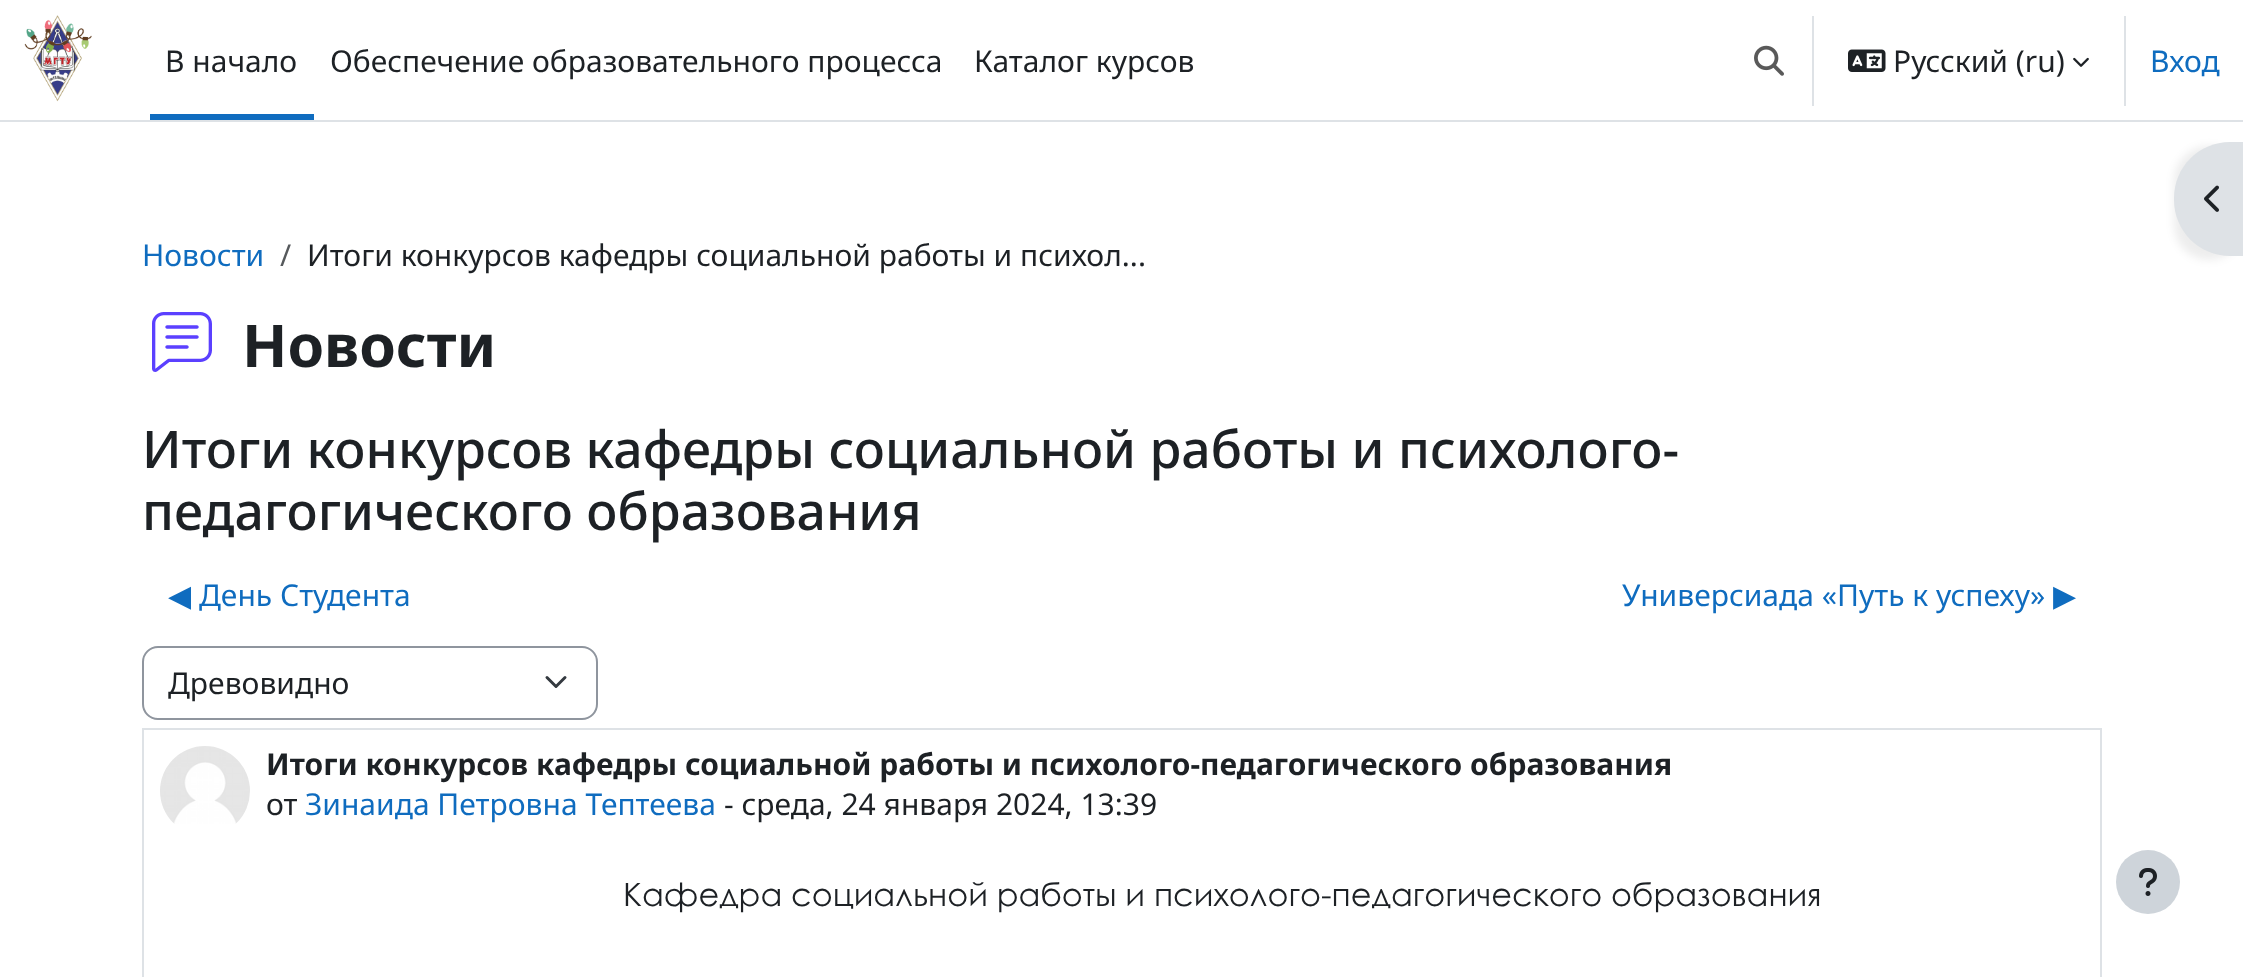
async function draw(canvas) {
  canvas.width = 2243;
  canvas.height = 977;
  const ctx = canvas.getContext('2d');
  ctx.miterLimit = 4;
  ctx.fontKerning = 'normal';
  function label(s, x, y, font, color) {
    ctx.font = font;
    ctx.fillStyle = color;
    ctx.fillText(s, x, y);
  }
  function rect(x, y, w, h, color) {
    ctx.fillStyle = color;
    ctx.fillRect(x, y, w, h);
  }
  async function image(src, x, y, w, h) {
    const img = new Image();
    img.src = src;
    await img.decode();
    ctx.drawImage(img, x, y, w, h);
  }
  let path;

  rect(0, 0, 2243, 977, '#fff');
  rect(0, 120, 2243, 2, '#dee2e6');
  await image('assets/img1.png', 24, 15, 68, 87);
  rect(150, 114, 164, 6, '#0f6cbf');
  label('В начало', 165, 72, '30px Noto Sans', '#1d2125');
  label('Обеспечение образовательного процесса', 330, 72, '30px Noto Sans', '#1d2125');
  label('Каталог курсов', 974, 72, '30px Noto Sans', '#1d2125');
  await image('assets/img2.png', 1754, 45, 30, 31);
  rect(1812, 16, 2, 90, '#dee2e6');
  await image('assets/img3.png', 1848, 49, 38, 23);
  label('Русский (ru)', 1893, 72, '30px Noto Sans', '#1d2125');
  await image('assets/img4.png', 2073, 57, 16, 10);
  rect(2124, 16, 2, 90, '#dee2e6');
  label('Вход', 2150, 72, '30px Noto Sans', '#0f6cbf');
  ctx.fillStyle = '#00000012';
  ctx.filter = 'blur(4px)';
  ctx.beginPath();
  ctx.roundRect(2174, 146, 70, 114, 56);
  ctx.fill();
  ctx.filter = 'none';
  ctx.fillStyle = '#dee2e6';
  path = new Path2D('M2230 142H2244V256H2230C2199 256 2174 231 2174 200V198C2174 167 2199 142 2230 142Z');
  ctx.fill(path);
  await image('assets/img5.png', 2204, 185, 15, 27);
  label('Новости', 142, 266, '30px Noto Sans', '#0f6cbf');
  label('/', 280, 266, '30px Noto Sans', '#56595c');
  label('Итоги конкурсов кафедры социальной работы и психол...', 307, 266, '30px Noto Sans', '#1d2125');
  await image('assets/img6.png', 152, 312, 60, 60);
  label('Новости', 242, 367, 'bold 59px Noto Sans', '#1d2125');
  label('Итоги конкурсов кафедры социальной работы и психолого-', 142, 468, '500 51.75px Noto Sans', '#1d2125');
  label('педагогического образования', 142, 530, '500 51.75px Noto Sans', '#1d2125');
  label('◀︎', 168, 606, '30px DejaVu Sans', '#0f6cbf');
  label('День Студента', 199, 606, '30px Noto Sans', '#0f6cbf');
  label('Универсиада «Путь к успеху»', 1622, 606, '30px Noto Sans', '#0f6cbf');
  label('▶︎', 2053, 606, '30px DejaVu Sans', '#0f6cbf');
  path = new Path2D('M547 677.5L556 686.5L565 677.5');
  ctx.strokeStyle = '#343a40';
  ctx.lineWidth = 3;
  ctx.lineCap = 'round';
  ctx.lineJoin = 'round';
  ctx.stroke(path);
  ctx.beginPath();
  ctx.roundRect(143, 647, 454, 72, 15);
  ctx.strokeStyle = '#8f959e';
  ctx.lineWidth = 2;
  ctx.lineJoin = 'miter';
  ctx.stroke();
  label('Древовидно', 168, 694, '30px Noto Sans', '#1d2125');
  ctx.strokeStyle = '#dee2e6';
  ctx.strokeRect(143, 729, 1958, 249);
  await image('assets/img7.png', 160, 746, 90, 78);
  label('Итоги конкурсов кафедры социальной работы и психолого-педагогического образования', 266, 775, 'bold 30px Noto Sans', '#1d2125');
  label('от', 266, 815, '30px Noto Sans', '#1d2125');
  label('Зинаида Петровна Тептеева', 305, 815, '30px Noto Sans', '#0f6cbf');
  label('- среда, 24 января 2024, 13:39', 724, 815, '30px Noto Sans', '#1d2125');
  label('Кафедра социальной работы и психолого-педагогического образования', 623, 906, '32px Century Gothic', '#1d2125');
  ctx.fillStyle = '#ced4da';
  ctx.beginPath();
  ctx.arc(2148, 882, 32, 0, 2 * Math.PI);
  ctx.fill();
  await image('assets/img8.png', 2139, 868, 18, 28);
}

draw(document.querySelector('canvas'));
